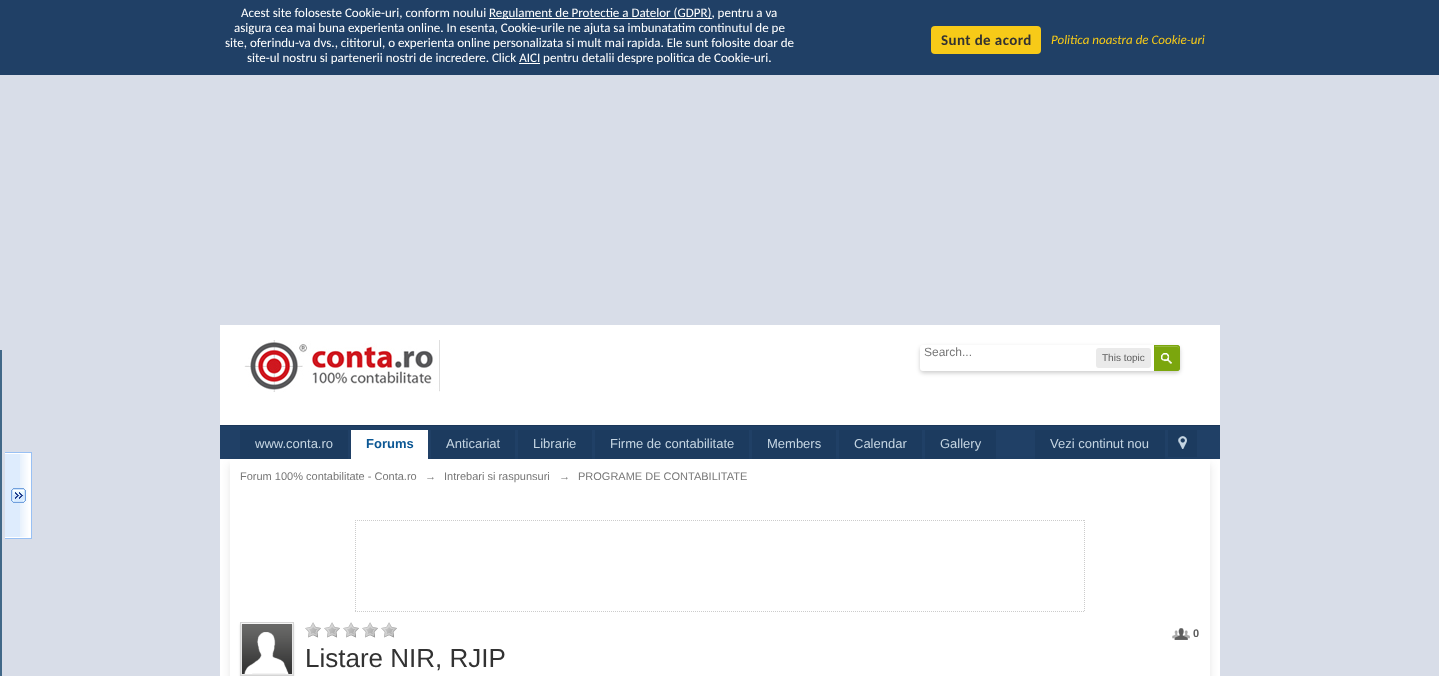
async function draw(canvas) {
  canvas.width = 1439;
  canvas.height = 676;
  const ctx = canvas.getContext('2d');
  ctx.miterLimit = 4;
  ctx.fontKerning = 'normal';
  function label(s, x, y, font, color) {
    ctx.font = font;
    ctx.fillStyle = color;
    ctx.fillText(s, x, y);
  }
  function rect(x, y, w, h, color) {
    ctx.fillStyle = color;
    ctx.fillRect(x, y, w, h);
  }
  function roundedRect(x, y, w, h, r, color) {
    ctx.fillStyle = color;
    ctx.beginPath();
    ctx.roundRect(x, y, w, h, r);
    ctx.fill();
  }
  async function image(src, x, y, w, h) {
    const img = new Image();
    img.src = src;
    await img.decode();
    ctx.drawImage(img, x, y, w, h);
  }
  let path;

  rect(0, 0, 1439, 676, '#d8dde8');
  rect(0, 0, 1439, 75, '#204066');
  label('Acest site foloseste Cookie-uri, conform noului', 241, 17, '13px Carlito', '#fff');
  rect(489, 18, 223, 1, '#fff');
  label('Regulament de Protectie a Datelor (GDPR), pentru a va', 489, 17, '13px Carlito', '#fff');
  label('asigura cea mai buna experienta online. In esenta, Cookie-urile ne ajuta sa imbunatatim continutul de pe', 234, 32, '13px Carlito', '#fff');
  label('site, oferindu-va dvs., cititorul, o experienta online personalizata si mult mai rapida. Ele sunt folosite doar de', 225, 47, '13px Carlito', '#fff');
  label('site-ul nostru si partenerii nostri de incredere. Click AICI pentru detalii despre politica de Cookie-uri.', 247, 62, '13px Carlito', '#fff');
  rect(519, 63, 21, 1, '#fff');
  roundedRect(931, 26, 110, 28, 4, '#f7ca18');
  ctx.letterSpacing = '0.4px';
  label('Sunt de acord', 941, 45, 'bold 15px Carlito', '#323232');
  ctx.letterSpacing = '0px';
  label('Politica noastra de Cookie-uri', 1051, 44, 'italic 13px Carlito', '#f7ca18');
  rect(220, 459, 1000, 217, '#fff');
  rect(220, 325, 1000, 100, '#fff');
  rect(220, 425, 1000, 1, '#1b3759');
  rect(0, 350, 2, 326, '#416888');
  await image('assets/img1.png', 5, 452, 27, 87);
  await image('assets/img2.png', 244, 340, 196, 52);
  ctx.fillStyle = '#00000033';
  ctx.filter = 'blur(2px)';
  ctx.beginPath();
  ctx.roundRect(920, 347, 260, 26, 4);
  ctx.fill();
  ctx.filter = 'none';
  ctx.fillStyle = '#fff';
  ctx.beginPath();
  ctx.roundRect(920, 345, 260, 26, [3, 4, 4, 3]);
  ctx.fill();
  label('Search...', 924, 356, '12px Liberation Sans', '#777');
  ctx.fillStyle = '#7ba60d';
  ctx.beginPath();
  ctx.roundRect(1154, 345, 26, 26, [0, 3, 3, 0]);
  ctx.fill();
  await image('assets/img3.png', 1161, 353, 11, 11);
  ctx.fillStyle = '#95b83d';
  path = new Path2D('M1155 347H1177C1178 347 1179 348 1179 349V348C1179 347 1178 346 1177 346H1155Z');
  ctx.fill(path);
  ctx.beginPath();
  ctx.roundRect(1154.5, 345.5, 25, 25, [0, 2.5, 2.5, 0]);
  ctx.strokeStyle = '#7ba60d';
  ctx.stroke();
  roundedRect(1096, 348, 55, 20, 3, '#eaeaea');
  label('This topic', 1102, 361, '10px Liberation Sans', '#5c5c5c');
  rect(220, 426, 1000, 33, '#204066');
  ctx.save();
  path = new Path2D('M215 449H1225V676H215ZM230 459H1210V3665H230Z');
  ctx.clip(path, 'evenodd');
  ctx.fillStyle = '#0000001a';
  ctx.filter = 'blur(4.5px)';
  ctx.beginPath();
  ctx.rect(230, 464, 980, 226);
  ctx.fill();
  ctx.filter = 'none';
  ctx.restore();
  rect(240, 430, 108, 29, '#1c3b5f');
  label('www.conta.ro', 255, 448, '13px Liberation Sans', '#c5d5e2');
  rect(351, 430, 77, 29, '#fff');
  label('Forums', 366, 448, 'bold 13px Liberation Sans', '#0b5794');
  rect(431, 430, 84, 29, '#1c3b5f');
  label('Anticariat', 446, 448, '13px Liberation Sans', '#c5d5e2');
  rect(518, 430, 74, 29, '#1c3b5f');
  label('Librarie', 533, 448, '13px Liberation Sans', '#c5d5e2');
  rect(595, 430, 154, 29, '#1c3b5f');
  label('Firme de contabilitate', 610, 448, '13px Liberation Sans', '#c5d5e2');
  rect(752, 430, 84, 29, '#1c3b5f');
  label('Members', 767, 448, '13px Liberation Sans', '#c5d5e2');
  rect(839, 430, 83, 29, '#1c3b5f');
  label('Calendar', 854, 448, '13px Liberation Sans', '#c5d5e2');
  rect(925, 430, 71, 29, '#1c3b5f');
  label('Gallery', 940, 448, '13px Liberation Sans', '#c5d5e2');
  rect(1035, 430, 130, 29, '#1c3b5f');
  label('Vezi continut nou', 1050, 448, '13px Liberation Sans', '#c5d5e2');
  rect(1168, 430, 29, 27, '#1c3b5f');
  await image('assets/img4.png', 1178, 436, 9, 13);
  label('Forum 100% contabilitate - Conta.ro', 240, 480, '11px Liberation Sans', '#777');
  label('→', 425, 480, '11px Liberation Sans', '#777');
  label('Intrebari si raspunsuri', 444, 480, '11px Liberation Sans', '#777');
  label('→', 559, 480, '11px Liberation Sans', '#777');
  label('PROGRAME DE CONTABILITATE', 578, 480, '11px Liberation Sans', '#777');
  path = new Path2D('M355 520.5H1085');
  ctx.strokeStyle = '#ccc';
  ctx.setLineDash([1, 1]);
  ctx.stroke(path);
  path = new Path2D('M1084.5 520V612');
  ctx.stroke(path);
  path = new Path2D('M355 611.5H1085');
  ctx.stroke(path);
  path = new Path2D('M355.5 520V612');
  ctx.stroke(path);
  ctx.fillStyle = '#0000001a';
  ctx.filter = 'blur(1px)';
  ctx.beginPath();
  ctx.rect(240, 624, 54, 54);
  ctx.fill();
  ctx.filter = 'none';
  ctx.strokeStyle = '#d5d5d5';
  ctx.setLineDash([]);
  ctx.strokeRect(240.5, 622.5, 53, 53);
  await image('assets/img5.png', 242, 624, 50, 50);
  await image('assets/img6.png', 1172, 628, 18, 12);
  label('0', 1193, 637, 'bold 11px Liberation Sans', '#5c5c5c');
  await image('assets/img7.png', 305, 622, 16, 16);
  await image('assets/img7.png', 324, 622, 16, 16);
  await image('assets/img7.png', 343, 622, 16, 16);
  await image('assets/img7.png', 362, 622, 16, 16);
  await image('assets/img7.png', 381, 622, 16, 16);
  label('Listare NIR, RJIP', 305, 667, '26px Liberation Sans', '#323232');
}

draw(document.querySelector('canvas'));
